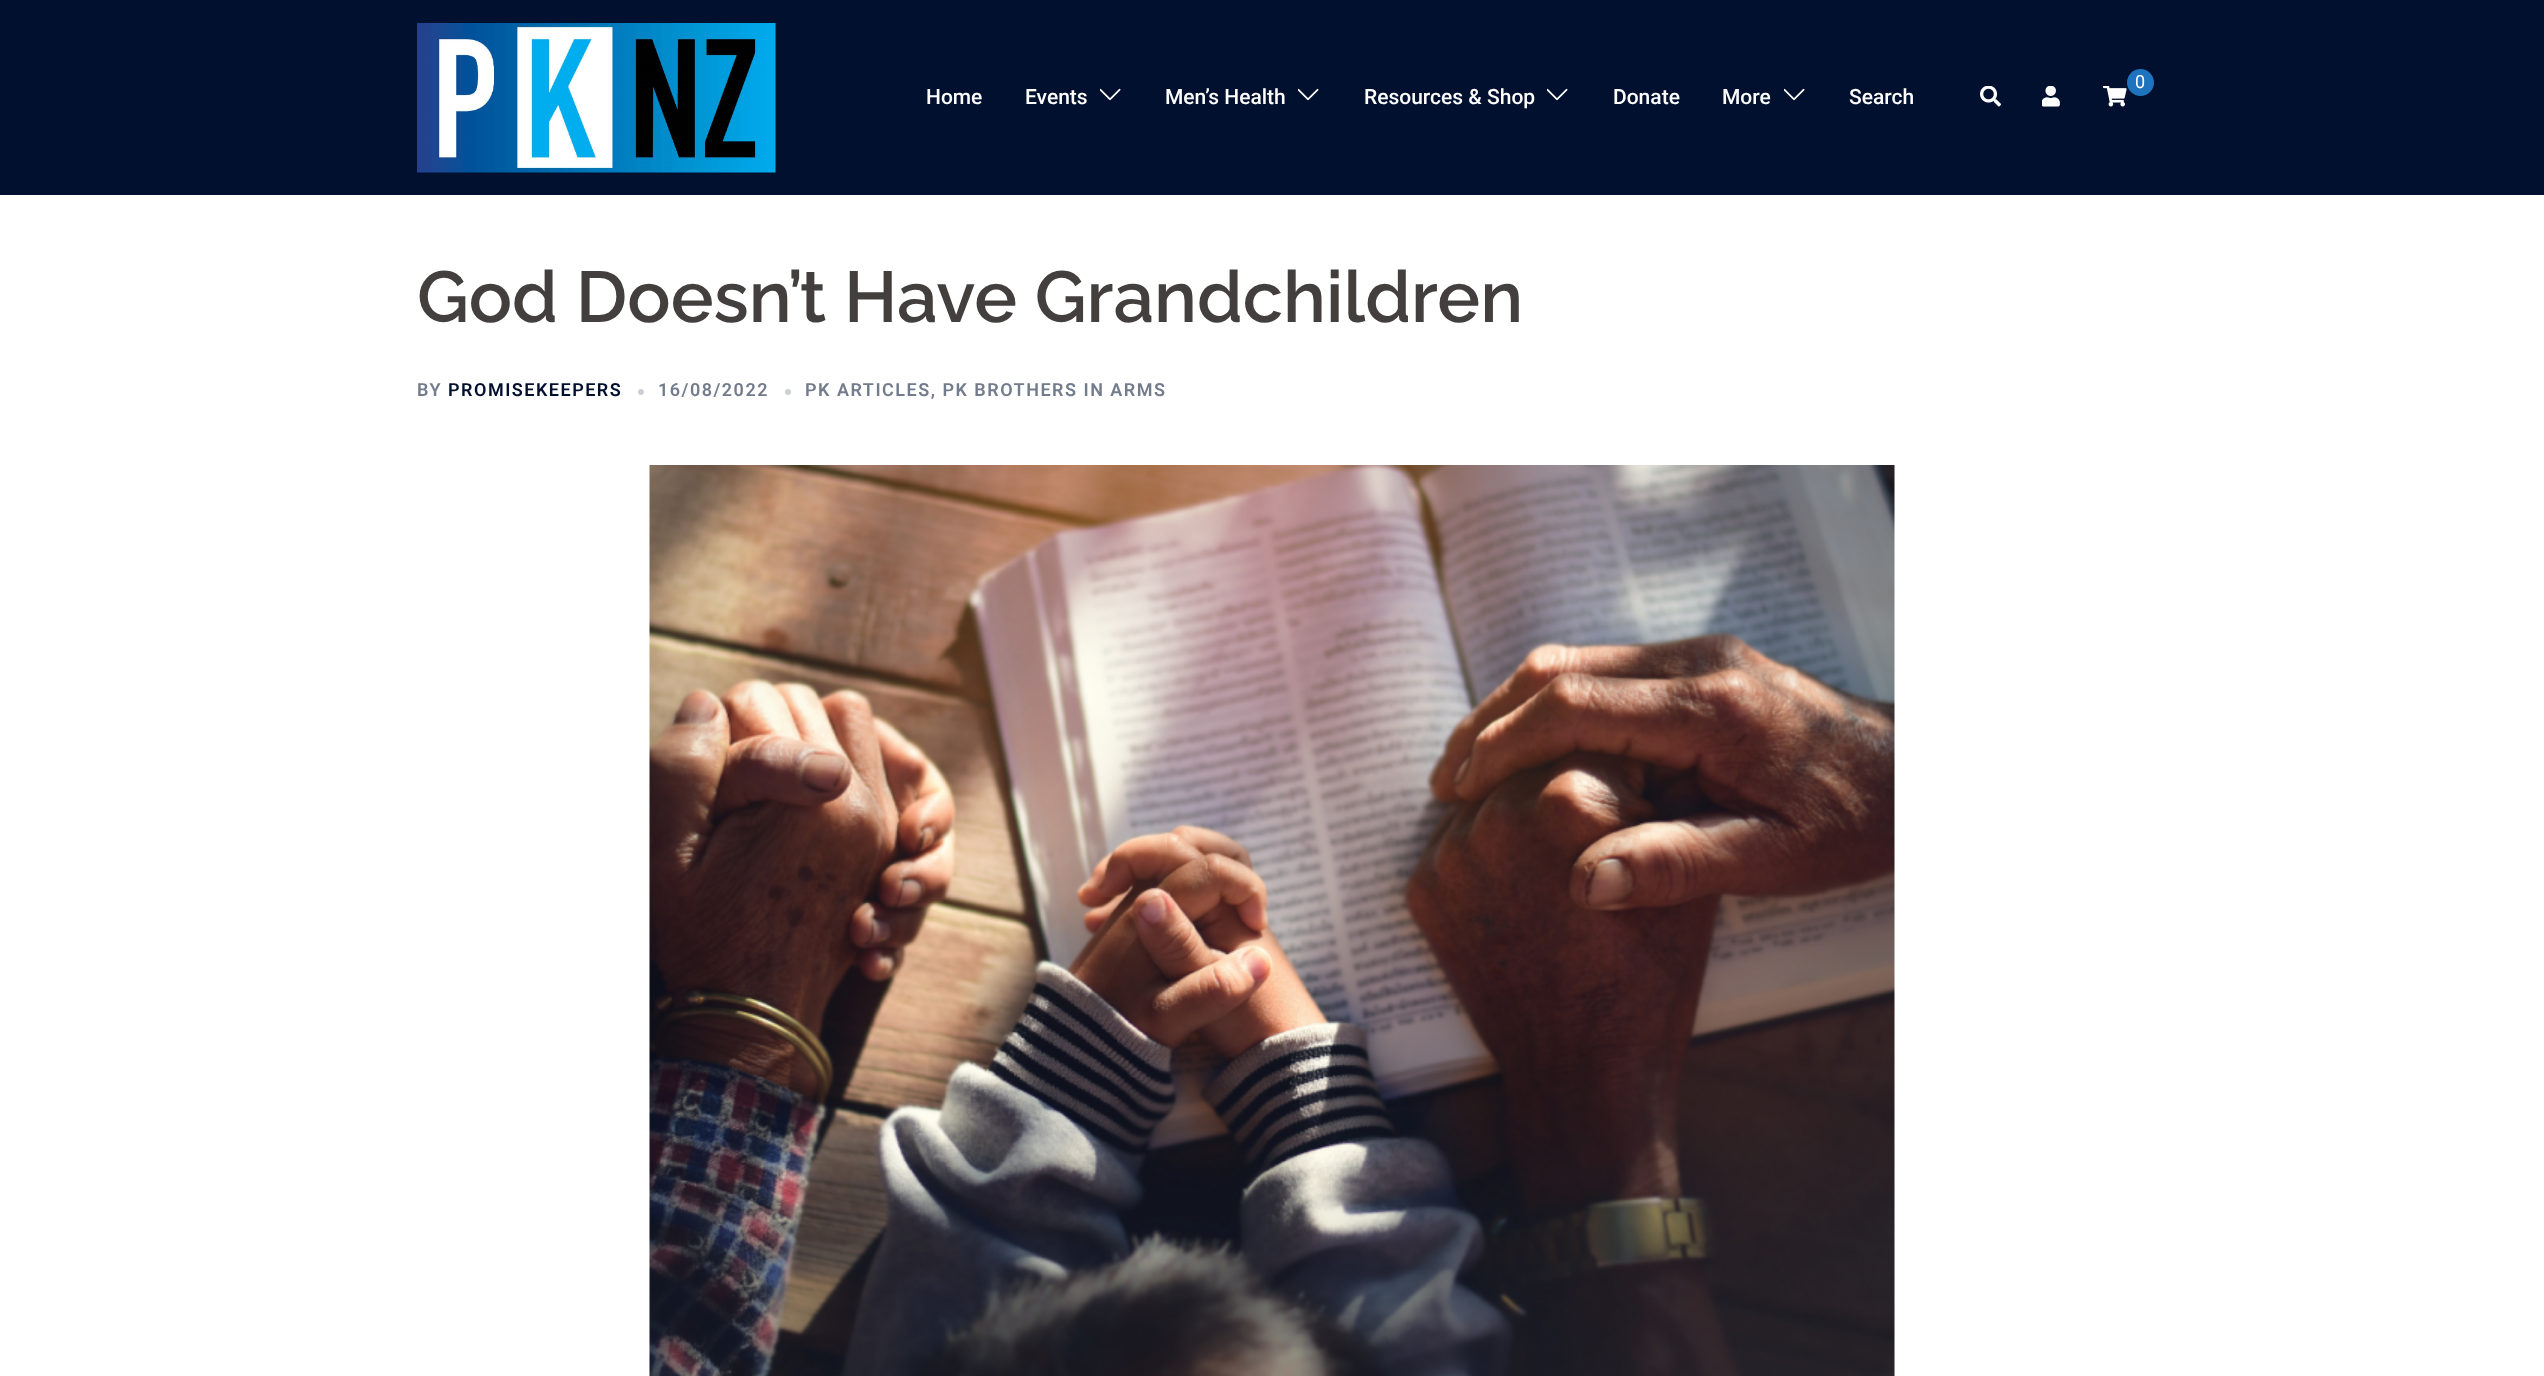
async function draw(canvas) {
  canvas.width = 2544;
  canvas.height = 1376;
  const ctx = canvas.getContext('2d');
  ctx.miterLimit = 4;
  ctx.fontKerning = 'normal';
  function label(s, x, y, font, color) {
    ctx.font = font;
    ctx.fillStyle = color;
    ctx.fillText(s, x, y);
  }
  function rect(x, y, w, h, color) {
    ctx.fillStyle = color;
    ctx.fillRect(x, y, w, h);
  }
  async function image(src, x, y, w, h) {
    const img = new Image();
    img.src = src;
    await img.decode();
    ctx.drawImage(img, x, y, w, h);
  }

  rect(0, 0, 2544, 1376, '#fff');
  rect(0, 0, 2544, 195, '#00102e');
  await image('assets/img1.png', 417, 23, 359, 150);
  ctx.fillStyle = '#1e73be';
  ctx.beginPath();
  ctx.arc(2140.5, 82.5, 13.5, 0, 2 * Math.PI);
  ctx.fill();
  label('0', 2135, 88, '18px Roboto', '#fff');
  await image('assets/img2.png', 2103, 86, 24, 21);
  await image('assets/img3.png', 2042, 86, 18, 21);
  await image('assets/img4.png', 1980, 86, 21, 21);
  label('Home', 926, 104, '500 21px Roboto', '#fff');
  label('Events', 1025, 104, '500 21px Roboto', '#fff');
  await image('assets/img5.png', 1100, 88, 21, 13);
  label('Men’s Health', 1165, 104, '500 21px Roboto', '#fff');
  await image('assets/img5.png', 1298, 88, 21, 13);
  label('Resources & Shop', 1364, 104, '500 21px Roboto', '#fff');
  await image('assets/img5.png', 1547, 88, 21, 13);
  label('Donate', 1613, 104, '500 21px Roboto', '#fff');
  label('More', 1722, 104, '500 21px Roboto', '#fff');
  await image('assets/img5.png', 1784, 88, 21, 13);
  label('Search', 1849, 104, '500 21px Roboto', '#fff');
  label('God Doesn’t Have Grandchildren', 417, 322, '600 72px Raleway', '#443f3f');
  ctx.letterSpacing = '1.5px';
  label('BY', 417, 396, '600 18px Roboto', '#737c8c');
  label('PROMISEKEEPERS', 448, 396, '600 18px Roboto', '#00102e');
  ctx.fillStyle = '#cccfd5';
  ctx.beginPath();
  ctx.arc(641, 392, 3, 0, 2 * Math.PI);
  ctx.fill();
  label('16/08/2022', 658, 396, '600 18px Roboto', '#737c8c');
  ctx.fillStyle = '#cccfd5';
  ctx.beginPath();
  ctx.arc(788, 392, 3, 0, 2 * Math.PI);
  ctx.fill();
  label('PK ARTICLES, PK BROTHERS IN ARMS', 805, 396, '600 18px Roboto', '#737c8c');
  await image('assets/img6.png', 649, 465, 1246, 911);
}

draw(document.querySelector('canvas'));
